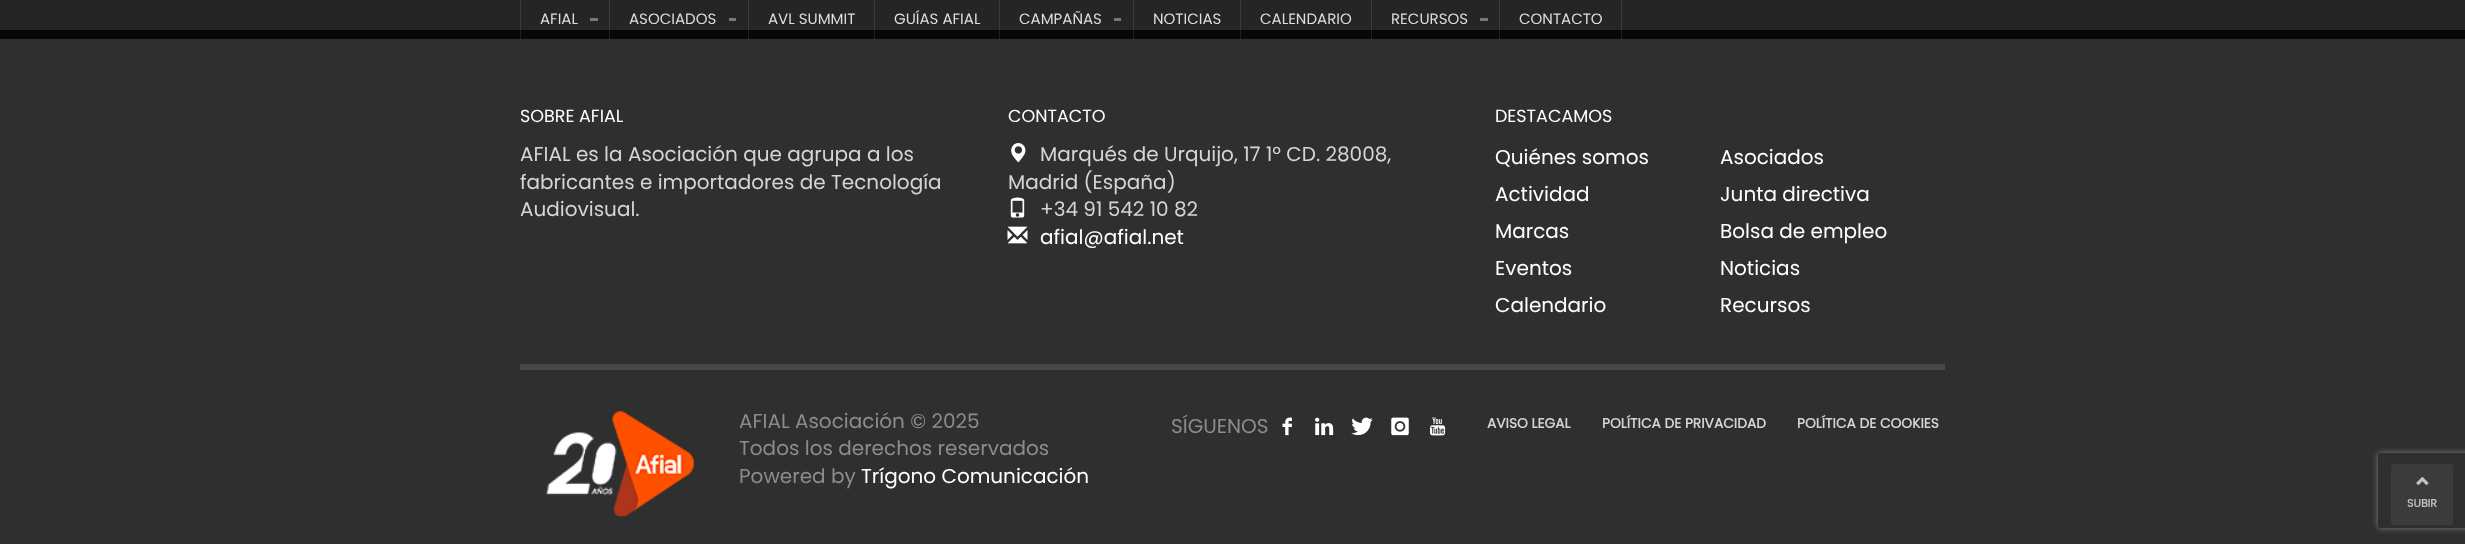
async function draw(canvas) {
  canvas.width = 2465;
  canvas.height = 544;
  const ctx = canvas.getContext('2d');
  ctx.miterLimit = 4;
  ctx.fontKerning = 'normal';
  function label(s, x, y, font, color) {
    ctx.font = font;
    ctx.fillStyle = color;
    ctx.fillText(s, x, y);
  }
  function rect(x, y, w, h, color) {
    ctx.fillStyle = color;
    ctx.fillRect(x, y, w, h);
  }
  function roundedRect(x, y, w, h, r, color) {
    ctx.fillStyle = color;
    ctx.beginPath();
    ctx.roundRect(x, y, w, h, r);
    ctx.fill();
  }
  async function image(src, x, y, w, h) {
    const img = new Image();
    img.src = src;
    await img.decode();
    ctx.drawImage(img, x, y, w, h);
  }
  let path;

  rect(0, 0, 2465, 544, '#252525');
  rect(1499, 0, 1, 25, '#3b3b3b');
  rect(1621, 0, 1, 25, '#3b3b3b');
  rect(1371, 0, 1, 25, '#3b3b3b');
  rect(1240, 0, 1, 25, '#3b3b3b');
  rect(1133, 0, 1, 25, '#3b3b3b');
  rect(999, 0, 1, 25, '#3b3b3b');
  rect(874, 0, 1, 25, '#3b3b3b');
  rect(748, 0, 1, 25, '#3b3b3b');
  rect(609, 0, 1, 25, '#3b3b3b');
  rect(520, 0, 1, 25, '#3b3b3b');
  label('AFIAL', 540, 24, '15px Poppins', '#ddd');
  rect(590, 18, 8, 3, '#787878');
  label('ASOCIADOS', 629, 24, '15px Poppins', '#ddd');
  rect(729, 18, 7, 3, '#787878');
  label('AVL SUMMIT', 768, 24, '15px Poppins', '#ddd');
  label('GUÍAS AFIAL', 894, 24, '15px Poppins', '#ddd');
  label('CAMPAÑAS', 1019, 24, '15px Poppins', '#ddd');
  rect(1114, 18, 7, 3, '#787878');
  label('NOTICIAS', 1153, 24, '15px Poppins', '#ddd');
  label('CALENDARIO', 1260, 24, '15px Poppins', '#ddd');
  label('RECURSOS', 1391, 24, '15px Poppins', '#ddd');
  rect(1480, 18, 8, 3, '#787878');
  label('CONTACTO', 1519, 24, '15px Poppins', '#ddd');
  rect(0, 39, 2465, 505, '#2f2f2f');
  rect(0, 30, 2465, 9, '#070707');
  rect(1499, 25, 1, 14, '#202020');
  rect(1621, 25, 1, 14, '#202020');
  rect(1371, 25, 1, 14, '#202020');
  rect(1240, 25, 1, 14, '#202020');
  rect(1133, 25, 1, 14, '#202020');
  rect(999, 25, 1, 14, '#202020');
  rect(874, 25, 1, 14, '#202020');
  rect(748, 25, 1, 14, '#202020');
  rect(609, 25, 1, 14, '#202020');
  rect(520, 25, 1, 14, '#202020');
  rect(520, 25, 1102, 5, '#262626');
  rect(1499, 25, 1, 5, '#3c3c3c');
  rect(1621, 25, 1, 5, '#3c3c3c');
  rect(1371, 25, 1, 5, '#3c3c3c');
  rect(1240, 25, 1, 5, '#3c3c3c');
  rect(1133, 25, 1, 5, '#3c3c3c');
  rect(999, 25, 1, 5, '#3c3c3c');
  rect(874, 25, 1, 5, '#3c3c3c');
  rect(748, 25, 1, 5, '#3c3c3c');
  rect(609, 25, 1, 5, '#3c3c3c');
  rect(520, 25, 1, 5, '#3c3c3c');
  label('SOBRE AFIAL', 520, 122, '17.5px Poppins', '#fff');
  label('AFIAL es la Asociación que agrupa a los', 520, 161, '20px Poppins', '#d5d5d5');
  label('fabricantes e importadores de Tecnología', 520, 189, '20px Poppins', '#d5d5d5');
  label('Audiovisual.', 520, 216, '20px Poppins', '#d5d5d5');
  label('CONTACTO', 1008, 122, '17.5px Poppins', '#fff');
  await image('assets/img1.png', 1011, 143, 15, 20);
  label('Marqués de Urquijo, 17 1º CD. 28008,', 1040, 161, '20px Poppins', '#d5d5d5');
  label('Madrid (España)', 1008, 189, '20px Poppins', '#d5d5d5');
  await image('assets/img2.png', 1010, 197, 15, 21);
  label('+34 91 542 10 82', 1040, 216, '20px Poppins', '#d5d5d5');
  await image('assets/img3.png', 1007, 226, 21, 18);
  label('afial@afial.net', 1040, 244, '20px Poppins', '#fff');
  label('DESTACAMOS', 1495, 122, '17.5px Poppins', '#fff');
  label('Quiénes somos', 1495, 164, '20px Poppins', '#fff');
  label('Asociados', 1720, 164, '20px Poppins', '#fff');
  label('Actividad', 1495, 201, '20px Poppins', '#fff');
  label('Junta directiva', 1720, 201, '20px Poppins', '#fff');
  label('Marcas', 1495, 238, '20px Poppins', '#fff');
  label('Bolsa de empleo', 1720, 238, '20px Poppins', '#fff');
  label('Eventos', 1495, 275, '20px Poppins', '#fff');
  label('Noticias', 1720, 275, '20px Poppins', '#fff');
  label('Calendario', 1495, 312, '20px Poppins', '#fff');
  label('Recursos', 1720, 312, '20px Poppins', '#fff');
  rect(520, 364, 1425, 6, '#484848');
  await image('assets/img4.png', 546, 411, 148, 106);
  label('AFIAL Asociación © 2025', 739, 428, '20px Poppins', '#8b8c8d');
  label('Todos los derechos reservados', 739, 455, '20px Poppins', '#8b8c8d');
  label('Powered by', 739, 483, '20px Poppins', '#8b8c8d');
  label('Trígono Comunicación', 861, 483, '20px Poppins', '#fff');
  label('SÍGUENOS', 1171, 433, '20px Poppins', '#8b8c8d');
  await image('assets/img5.png', 1282, 417, 10, 19);
  await image('assets/img6.png', 1315, 417, 19, 19);
  await image('assets/img7.png', 1351, 417, 22, 19);
  await image('assets/img8.png', 1391, 417, 18, 19);
  await image('assets/img9.png', 1430, 417, 16, 19);
  label('AVISO LEGAL', 1487, 428, 'bold 13.75px Poppins', '#d5d5d5');
  label('POLÍTICA DE PRIVACIDAD', 1602, 428, 'bold 13.75px Poppins', '#d5d5d5');
  label('POLÍTICA DE COOKIES', 1797, 428, 'bold 13.75px Poppins', '#d5d5d5');
  ctx.save();
  path = new Path2D('M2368 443H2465V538H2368ZM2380.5 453H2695.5C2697 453 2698 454 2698 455.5V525.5C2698 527 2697 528 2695.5 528H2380.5C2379 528 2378 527 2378 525.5V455.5C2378 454 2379 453 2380.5 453Z');
  ctx.clip(path, 'evenodd');
  ctx.fillStyle = '#808080';
  ctx.filter = 'blur(3px)';
  ctx.beginPath();
  ctx.roundRect(2378, 453, 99, 75, 2.5);
  ctx.fill();
  ctx.filter = 'none';
  ctx.restore();
  roundedRect(2391, 464, 62, 61, 2.5, '#3b3b3b');
  await image('assets/img10.png', 2416, 476, 13, 10);
  label('SUBIR', 2407, 507, 'bold 11px Poppins', '#c1c1c1');
}

draw(document.querySelector('canvas'));
